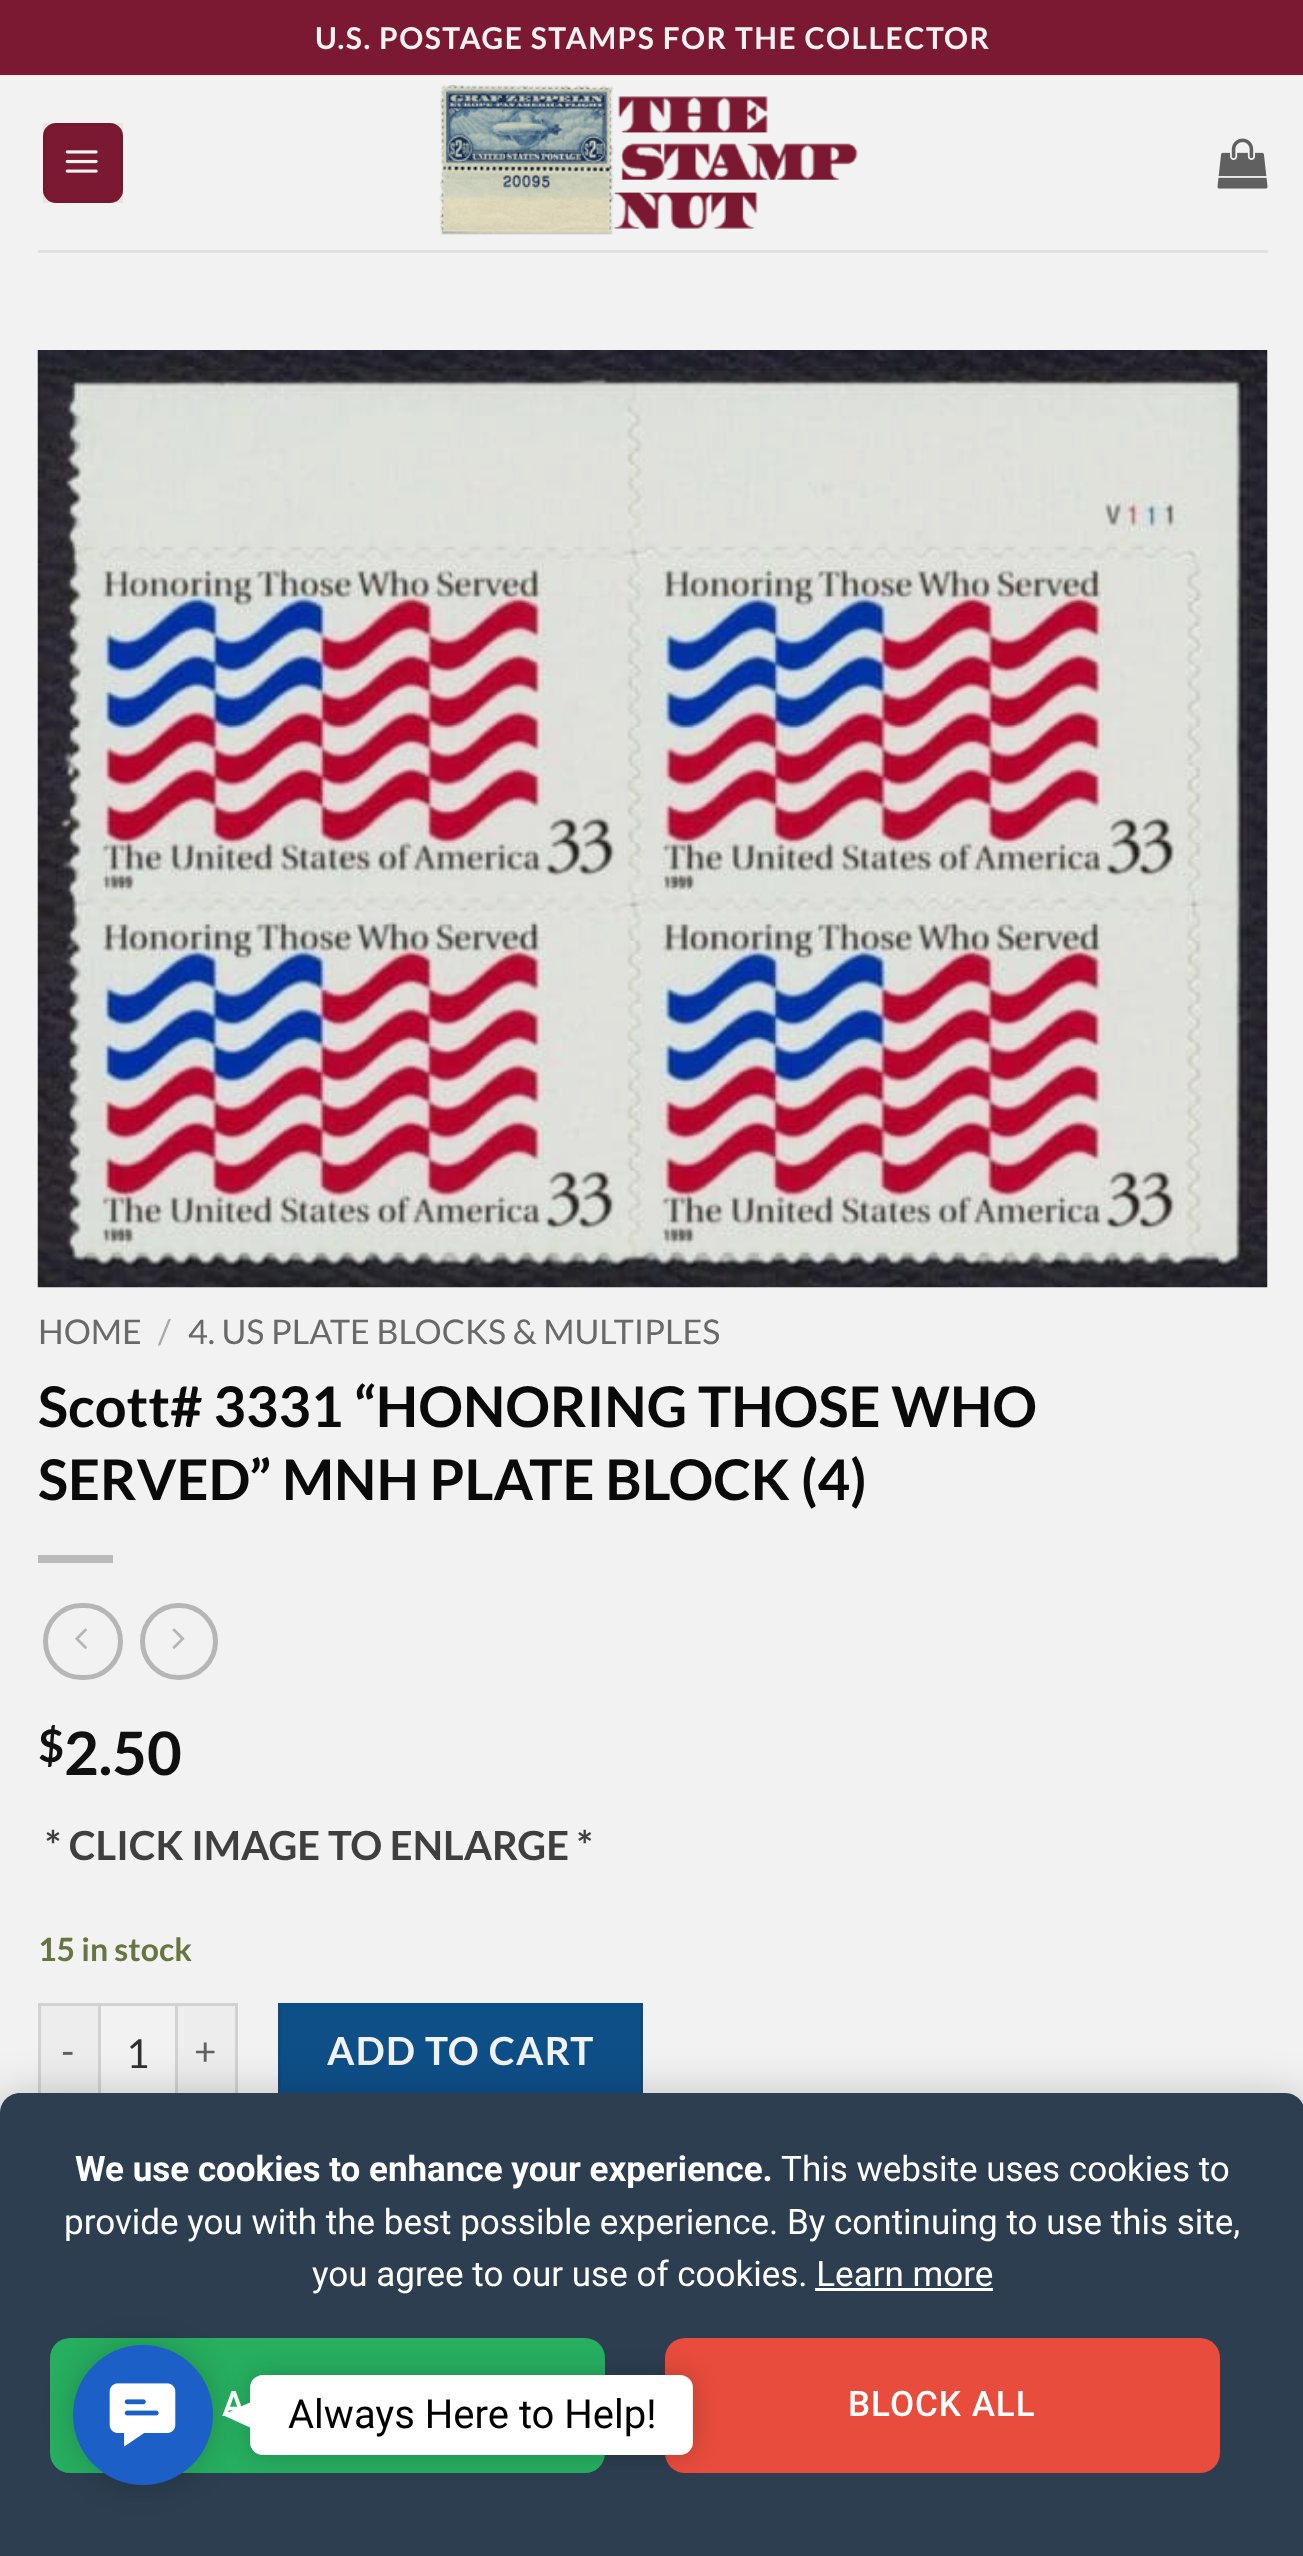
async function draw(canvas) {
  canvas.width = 1303;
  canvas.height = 2556;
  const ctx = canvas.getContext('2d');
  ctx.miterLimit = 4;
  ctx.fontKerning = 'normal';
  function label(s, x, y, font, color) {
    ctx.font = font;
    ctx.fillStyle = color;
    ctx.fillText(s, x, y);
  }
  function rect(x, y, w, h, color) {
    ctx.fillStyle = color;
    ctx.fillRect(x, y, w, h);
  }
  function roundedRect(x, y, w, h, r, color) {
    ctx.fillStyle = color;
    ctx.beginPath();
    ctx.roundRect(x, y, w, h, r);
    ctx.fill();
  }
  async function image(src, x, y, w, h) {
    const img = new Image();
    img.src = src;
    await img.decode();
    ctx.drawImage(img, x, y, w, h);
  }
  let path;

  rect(0, 0, 1303, 2556, '#f2f2f2');
  rect(0, 0, 1303, 75, '#7c1932');
  ctx.letterSpacing = '1.5px';
  label('U.S. POSTAGE STAMPS FOR THE COLLECTOR', 315, 49, 'bold 30px Lato', '#f2f2f2');
  roundedRect(43, 123, 80, 80, 13, '#7c1932');
  ctx.strokeStyle = '#0000000d';
  ctx.lineWidth = 3;
  ctx.strokeRect(44.5, 124.5, 77, 77);
  await image('assets/img1.png', 65, 150, 33, 23);
  await image('assets/img2.png', 439, 85, 419, 150);
  await image('assets/img3.png', 1217, 138, 51, 51);
  rect(38, 250, 1230, 3, '#e0e0e0');
  await image('assets/img4.png', 37, 350, 1231, 938);
  ctx.letterSpacing = '0px';
  label('HOME', 38, 1344, '34px Lato', '#696969');
  label('/', 158, 1344, '34px Lato', '#a9a9a9');
  label('4. US PLATE BLOCKS & MULTIPLES', 188, 1344, '34px Lato', '#696969');
  label('Scott# 3331 “HONORING THOSE WHO', 38, 1427, 'bold 56px Lato', '#0a0a0a');
  label('SERVED” MNH PLATE BLOCK (4)', 38, 1500, 'bold 56px Lato', '#0a0a0a');
  rect(38, 1555, 75, 8, '#bababa');
  ctx.beginPath();
  ctx.roundRect(45.5, 1605.5, 75, 72, 36);
  ctx.strokeStyle = '#b6b6b6';
  ctx.lineWidth = 5;
  ctx.stroke();
  await image('assets/img5.png', 75, 1628, 12, 21);
  ctx.beginPath();
  ctx.roundRect(142.5, 1605.5, 73, 72, 36);
  ctx.stroke();
  await image('assets/img6.png', 172, 1628, 13, 21);
  label('$', 38, 1762, 'bold 45px Lato', '#101010');
  label('2.50', 64, 1775, 'bold 60px Lato', '#101010');
  label('* CLICK IMAGE TO ENLARGE *', 45, 1860, 'bold 40px Lato', '#3f3f3f');
  label('15 in stock', 38, 1961, 'bold 32px Lato', '#667640');
  rect(41, 2006, 57, 87, '#ededed');
  rect(38, 2003, 60, 3, '#d2d2d2');
  rect(38, 2003, 3, 90, '#d2d2d2');
  ctx.letterSpacing = '1.25px';
  label('-', 61, 2065, '38.75px Lato', '#616161');
  ctx.strokeStyle = '#d2d2d2';
  ctx.lineWidth = 3;
  ctx.strokeRect(99.5, 2004.5, 77, 97);
  ctx.letterSpacing = '0px';
  label('1', 126, 2068, '40px Lato', '#303030');
  rect(178, 2006, 57, 87, '#ededed');
  rect(178, 2003, 60, 3, '#d2d2d2');
  rect(235, 2003, 3, 90, '#d2d2d2');
  ctx.letterSpacing = '1.25px';
  label('+', 194, 2065, '38.75px Lato', '#616161');
  rect(281, 2006, 359, 87, '#0e4f88');
  ctx.strokeStyle = '#0d4b81';
  ctx.strokeRect(279.5, 2004.5, 362, 97);
  label('ADD TO CART', 327, 2065, 'bold 38.75px Lato', '#f2f2f2');
  ctx.fillStyle = '#0000004d';
  ctx.filter = 'blur(25px)';
  ctx.beginPath();
  ctx.roundRect(0, 2103, 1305, 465, 20);
  ctx.fill();
  ctx.filter = 'none';
  ctx.fillStyle = '#2c3e50';
  path = new Path2D('M20 2093H1285C1296 2093 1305 2102 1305 2113V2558H0V2113C0 2102 9 2093 20 2093Z');
  ctx.fill(path);
  ctx.letterSpacing = '0px';
  label('We use cookies to enhance your experience.', 75, 2181, 'bold 35px Roboto', '#fff');
  label('This website uses cookies to', 781, 2181, '35px Roboto', '#fff');
  label('provide you with the best possible experience. By continuing to use this site,', 64, 2234, '35px Roboto', '#fff');
  label('you agree to our use of cookies. Learn more', 312, 2286, '35px Roboto', '#fff');
  rect(815, 2288, 178, 3, '#fff');
  roundedRect(50, 2338, 555, 135, 20, '#27ae60');
  ctx.letterSpacing = '1px';
  label('A', 222, 2416, '500 35px Roboto', '#fff');
  roundedRect(665, 2338, 555, 135, 20, '#e74c3c');
  label('BLOCK ALL', 848, 2416, '500 35px Roboto', '#fff');
  ctx.fillStyle = '#00000033';
  ctx.filter = 'blur(15px)';
  ctx.beginPath();
  ctx.roundRect(73, 2345, 140, 140, 70);
  ctx.fill();
  ctx.filter = 'none';
  ctx.fillStyle = '#1c5fc6';
  ctx.beginPath();
  ctx.arc(143, 2415, 70, 0, 2 * Math.PI);
  ctx.fill();
  await image('assets/img7.png', 109, 2383, 67, 64);
  ctx.fillStyle = '#00000033';
  ctx.filter = 'blur(12.5px)';
  ctx.beginPath();
  ctx.roundRect(250, 2375, 443, 80, 13);
  ctx.fill();
  ctx.filter = 'none';
  roundedRect(250, 2375, 443, 80, 13, '#fff');
  path = new Path2D('M250 2402.5V2427.5L222.5 2415Z');
  ctx.fill(path);
  ctx.letterSpacing = '0px';
  label('Always Here to Help!', 288, 2428, '40px Roboto', '#000');
}

draw(document.querySelector('canvas'));
